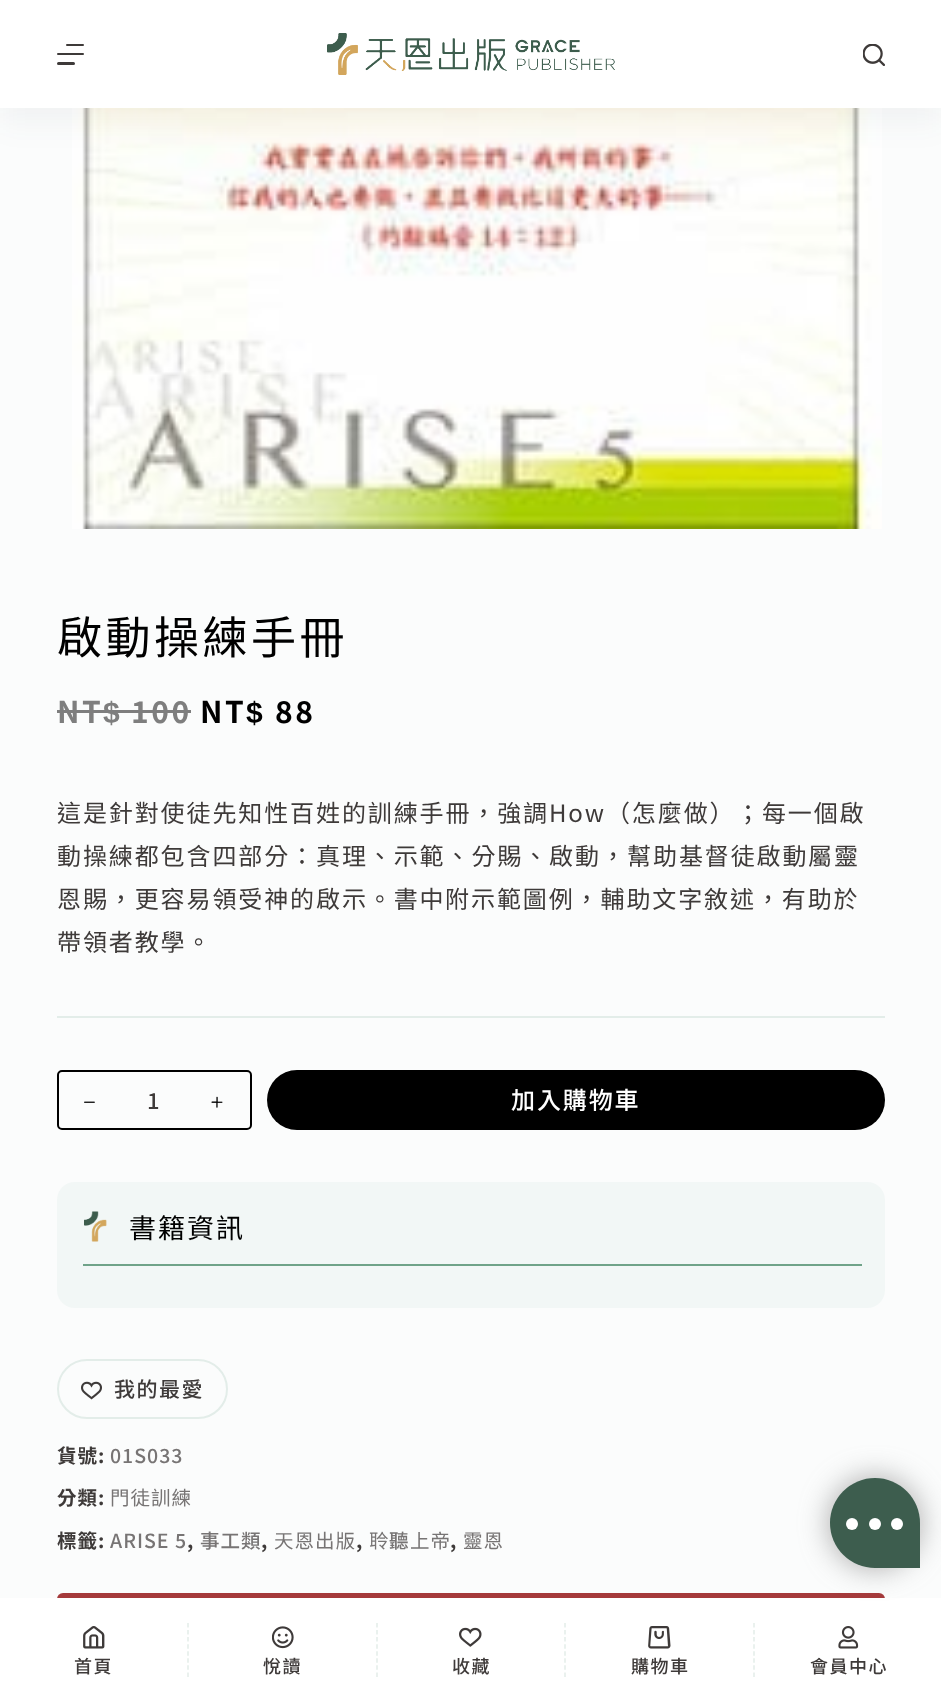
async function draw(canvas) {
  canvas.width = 941;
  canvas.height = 1702;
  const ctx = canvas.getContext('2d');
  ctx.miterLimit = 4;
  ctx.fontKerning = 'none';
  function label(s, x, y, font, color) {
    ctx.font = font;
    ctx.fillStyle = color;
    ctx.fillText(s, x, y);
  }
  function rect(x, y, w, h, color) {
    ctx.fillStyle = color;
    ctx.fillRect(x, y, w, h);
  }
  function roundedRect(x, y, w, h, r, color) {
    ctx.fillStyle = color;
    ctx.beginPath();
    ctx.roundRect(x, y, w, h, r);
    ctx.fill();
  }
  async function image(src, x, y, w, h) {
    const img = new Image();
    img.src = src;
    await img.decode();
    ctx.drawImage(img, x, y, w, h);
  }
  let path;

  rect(0, 0, 941, 1702, '#fbfcfc');
  await image('assets/img3.png', 72, 108, 810, 421);
  ctx.fillStyle = '#2c3e500d';
  ctx.filter = 'blur(15px)';
  ctx.beginPath();
  ctx.rect(0, 15, 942, 108);
  ctx.fill();
  ctx.filter = 'none';
  rect(0, 0, 941, 108, '#fff');
  roundedRect(66, 44, 18, 2, 1, '#3e3a39');
  roundedRect(57, 53, 27, 2, 1, '#3e3a39');
  roundedRect(57, 62, 18, 3, 1.5, '#3e3a39');
  await image('assets/img1.png', 327, 33, 288, 42);
  await image('assets/img2.png', 863, 44, 22, 22);
  ctx.letterSpacing = '3.5px';
  label('啟動操練手冊', 57, 654, '45px Noto Sans CJK TC', '#000');
  ctx.letterSpacing = '2.5px';
  label('NT', 57, 723, 'bold 30px Noto Sans TC', '#7e7e7e');
  rect(57, 710, 65, 3, '#7e7e7e');
  label('$', 103, 723, 'bold 30px Liberation Sans', '#7e7e7e');
  label('100', 131, 723, 'bold 30px Noto Sans TC', '#7e7e7e');
  rect(122, 710, 69, 3, '#7e7e7e');
  label('NT', 200, 723, 'bold 30px Noto Sans TC', '#000');
  label('$', 246, 723, 'bold 30px Liberation Sans', '#000');
  label('88', 275, 723, 'bold 30px Noto Sans TC', '#000');
  ctx.letterSpacing = '1.9px';
  label('這是針對使徒先知性百姓的訓練手冊，強', 57, 822, '24px Noto Sans CJK TC', '#3e3a39');
  label('調', 523, 822, '24px Noto Sans TC', '#3e3a39');
  label('How（怎麼做）', 549, 822, '24px Noto Sans CJK TC', '#3e3a39');
  label('；每一個啟', 736, 822, '24px Noto Sans CJK TC', '#3e3a39');
  label('動操練都包含四部分：真理、示範、分賜、啟動，', 57, 865, '24px Noto Sans CJK TC', '#3e3a39');
  label('幫', 627, 865, '24px Noto Sans TC', '#3e3a39');
  label('助基督徒啟動', 653, 865, '24px Noto Sans CJK TC', '#3e3a39');
  label('屬', 808, 865, '24px Noto Sans TC', '#3e3a39');
  label('靈', 834, 865, '24px Noto Sans CJK TC', '#3e3a39');
  label('恩賜，更容易領受神的啟示。書中', 57, 908, '24px Noto Sans CJK TC', '#3e3a39');
  label('附', 445, 908, '24px Noto Sans TC', '#3e3a39');
  label('示範圖例，輔助文字敘述，有助於', 471, 908, '24px Noto Sans CJK TC', '#3e3a39');
  label('帶領者教學。', 57, 951, '24px Noto Sans CJK TC', '#3e3a39');
  rect(57, 1016, 828, 2, '#e3ede9');
  ctx.beginPath();
  ctx.roundRect(58, 1071, 193, 58, 4);
  ctx.strokeStyle = '#000';
  ctx.lineWidth = 2;
  ctx.stroke();
  await image('assets/img4.png', 84, 1101, 11, 2);
  label('1', 147, 1109, '500 22px Noto Sans TC', '#3e3a39');
  await image('assets/img5.png', 211, 1096, 12, 12);
  roundedRect(267, 1070, 618, 60, 30, '#000');
  label('加入購物車', 511, 1109, '500 24px Noto Sans TC', '#fff');
  roundedRect(57, 1182, 828, 126, 18, '#f2f7f6');
  await image('assets/img6.png', 84, 1211, 23, 31);
  ctx.letterSpacing = '2px';
  label('書籍資訊', 129, 1238, '27px Noto Sans CJK TC', '#000');
  rect(83, 1264, 779, 2, '#70a389');
  ctx.beginPath();
  ctx.roundRect(58, 1360, 169, 58, 29);
  ctx.strokeStyle = '#e3ede9';
  ctx.stroke();
  await image('assets/img7.png', 81, 1381, 21, 19);
  ctx.letterSpacing = '1.5px';
  label('我的最愛', 114, 1397, '500 21px Noto Sans TC', '#3e3a39');
  ctx.letterSpacing = '1px';
  label('貨號:', 57, 1463, 'bold 19.5px Noto Sans TC', '#3e3a39');
  label('01S033', 110, 1463, '500 19.5px Noto Sans TC', '#777474');
  label('分類:', 57, 1505, 'bold 19.5px Noto Sans TC', '#3e3a39');
  label('門徒訓練', 110, 1505, '19.5px Noto Sans CJK TC', '#777474');
  label('標籤:', 57, 1548, 'bold 19.5px "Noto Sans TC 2"', '#3e3a39');
  label('ARISE 5', 110, 1548, '500 19.5px Noto Sans TC', '#777474');
  label(',', 187, 1548, 'bold 19.5px Noto Sans TC', '#3e3a39');
  label('事工類', 200, 1548, '500 19.5px Noto Sans TC', '#777474');
  label(',', 261, 1548, 'bold 19.5px Noto Sans TC', '#3e3a39');
  label('天恩出版', 274, 1548, '19.5px Noto Sans CJK TC', '#777474');
  label(',', 356, 1548, 'bold 19.5px Noto Sans TC', '#3e3a39');
  label('聆', 369, 1548, '19.5px Noto Sans CJK TC', '#777474');
  label('聽', 389, 1548, '500 19.5px Noto Sans TC', '#777474');
  label('上帝', 410, 1548, '19.5px Noto Sans CJK TC', '#777474');
  label(',', 450, 1548, 'bold 19.5px Noto Sans TC', '#3e3a39');
  label('靈恩', 463, 1548, '19.5px Noto Sans CJK TC', '#777474');
  roundedRect(57, 1593, 828, 74, 6, '#a53a3b');
  rect(0, 1598, 941, 104, '#fff');
  await image('assets/img8.png', 83, 1626, 22, 23);
  ctx.letterSpacing = '1.5px';
  label('首頁', 74, 1673, '500 18px Noto Sans TC', '#3e3a39');
  path = new Path2D('M188 1623V1677');
  ctx.lineWidth = 1.5;
  ctx.setLineDash([4.5, 2.56]);
  ctx.stroke(path);
  await image('assets/img9.png', 272, 1626, 22, 23);
  label('悅讀', 263, 1673, '500 18px Noto Sans TC', '#3e3a39');
  path = new Path2D('M377 1623V1677');
  ctx.stroke(path);
  await image('assets/img10.png', 459, 1627, 23, 20);
  label('收藏', 452, 1673, '500 18px Noto Sans TC', '#3e3a39');
  path = new Path2D('M565 1623V1677');
  ctx.stroke(path);
  await image('assets/img11.png', 648, 1626, 23, 23);
  label('購物車', 631, 1673, '500 18px Noto Sans TC', '#3e3a39');
  path = new Path2D('M754 1623V1677');
  ctx.stroke(path);
  await image('assets/img12.png', 838, 1626, 21, 23);
  label('會員中心', 810, 1673, '500 18px Noto Sans TC', '#3e3a39');
  ctx.fillStyle = '#777777a3';
  ctx.filter = 'blur(15px)';
  ctx.beginPath();
  ctx.roundRect(830, 1478, 90, 90, 45);
  ctx.fill();
  ctx.filter = 'none';
  ctx.fillStyle = '#3d5d4e';
  ctx.beginPath();
  ctx.roundRect(830, 1478, 90, 90, [45, 45, 0, 45]);
  ctx.fill();
  ctx.fillStyle = '#fff';
  ctx.beginPath();
  ctx.arc(852, 1524, 6, 0, 2 * Math.PI);
  ctx.fill();
  ctx.beginPath();
  ctx.arc(875, 1524, 6, 0, 2 * Math.PI);
  ctx.fill();
  ctx.beginPath();
  ctx.arc(897, 1524, 6, 0, 2 * Math.PI);
  ctx.fill();
}

draw(document.querySelector('canvas'));
